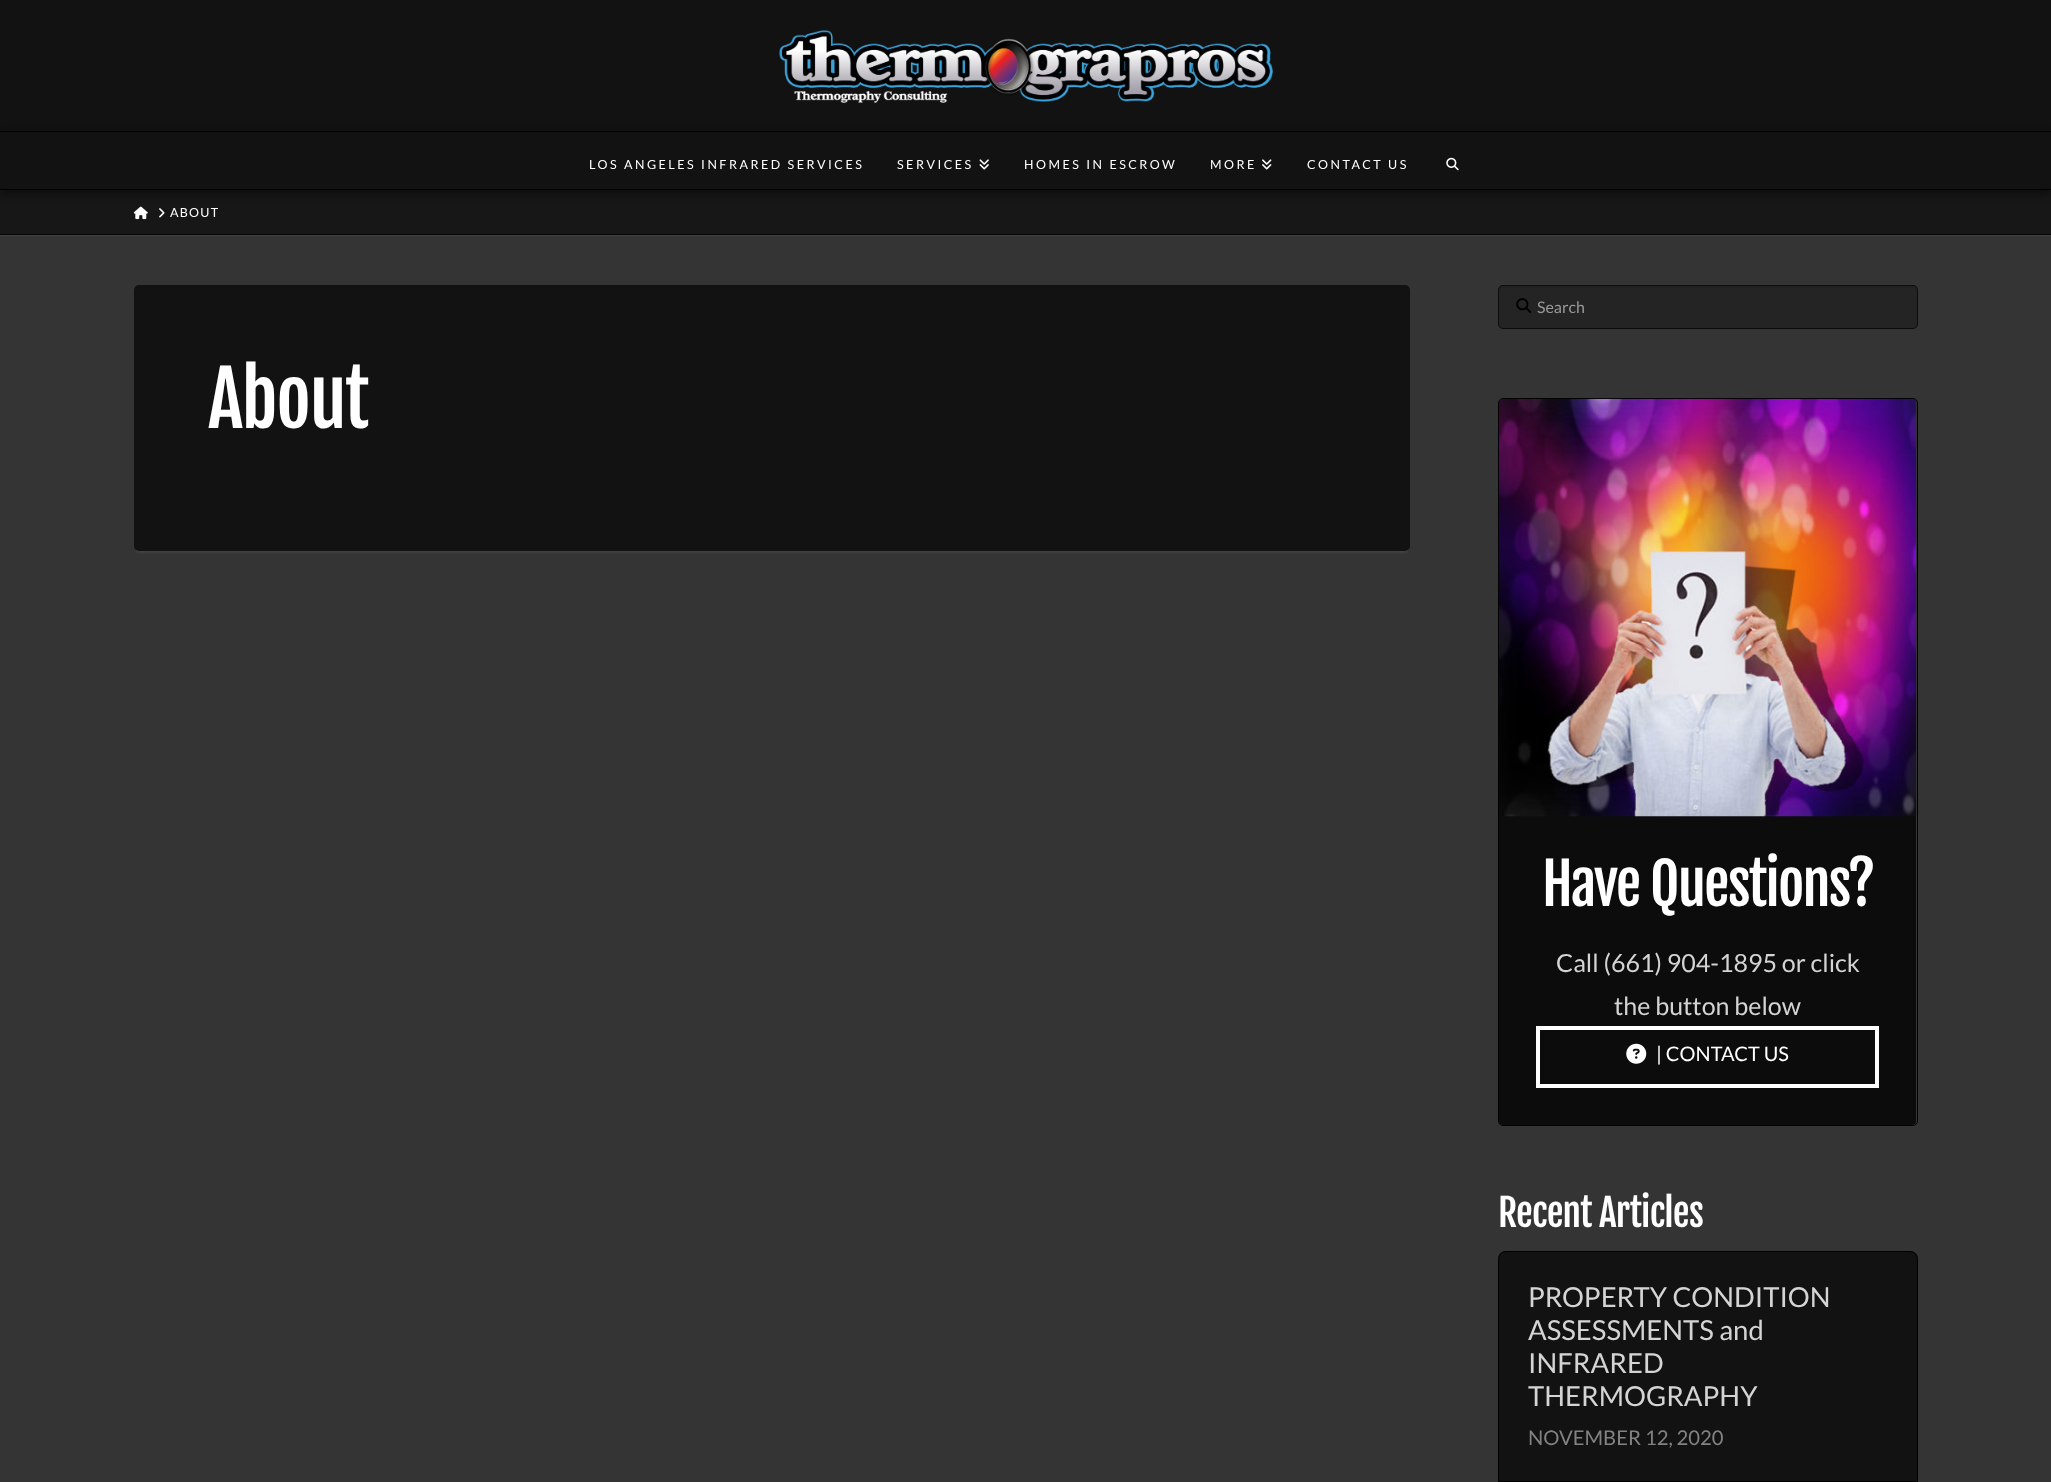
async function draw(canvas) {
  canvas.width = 2051;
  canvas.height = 1482;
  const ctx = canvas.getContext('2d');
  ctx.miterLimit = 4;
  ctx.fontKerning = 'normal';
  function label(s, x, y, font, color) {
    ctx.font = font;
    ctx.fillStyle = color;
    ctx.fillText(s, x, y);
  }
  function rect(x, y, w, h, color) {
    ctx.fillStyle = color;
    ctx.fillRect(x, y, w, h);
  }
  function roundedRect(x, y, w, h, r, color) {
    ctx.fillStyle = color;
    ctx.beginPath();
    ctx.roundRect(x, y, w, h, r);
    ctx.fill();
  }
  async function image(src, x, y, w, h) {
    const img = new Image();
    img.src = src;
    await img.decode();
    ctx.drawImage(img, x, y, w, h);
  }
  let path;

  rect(0, 0, 2051, 1482, '#343434');
  rect(0, 0, 2051, 133, '#121212');
  rect(0, 131, 2051, 1, '#050505');
  await image('assets/img1.png', 779, 30, 494, 73);
  rect(0, 190, 2051, 44, '#171717');
  await image('assets/img5.png', 133, 206, 15, 14);
  await image('assets/img6.png', 159, 208, 6, 10);
  ctx.fillStyle = '#00000078';
  ctx.filter = 'blur(4.5px)';
  ctx.beginPath();
  ctx.rect(0, 136, 2051, 58);
  ctx.fill();
  ctx.filter = 'none';
  rect(0, 133, 2051, 56, '#121212');
  rect(0, 189, 2051, 1, '#000');
  ctx.letterSpacing = '2.5px';
  label('LOS ANGELES INFRARED SERVICES', 589, 169, '12.5px Lato', '#fff');
  label('SERVICES', 897, 169, '12.5px Lato', '#fff');
  await image('assets/img2.png', 979, 159, 10, 11);
  label('HOMES IN ESCROW', 1024, 169, '12.5px Lato', '#fff');
  label('MORE', 1210, 169, '12.5px Lato', '#fff');
  await image('assets/img3.png', 1262, 159, 10, 11);
  label('CONTACT US', 1307, 169, '12.5px Lato', '#fff');
  await image('assets/img4.png', 1446, 157, 13, 14);
  rect(0, 235, 2051, 1, '#424242');
  rect(0, 234, 2051, 1, '#040404');
  ctx.letterSpacing = '1.25px';
  label('ABOUT', 170, 217, '12.5px Lato', '#fff');
  ctx.fillStyle = '#ffffff12';
  ctx.filter = 'blur(1px)';
  ctx.beginPath();
  ctx.roundRect(136, 291, 1272, 262, 2.5);
  ctx.fill();
  ctx.filter = 'none';
  roundedRect(134, 285, 1276, 266, 5, '#121212');
  ctx.letterSpacing = '-1.5px';
  label('About', 208, 428, '75px Fjalla One', '#fff');
  roundedRect(1498, 285, 420, 44, 5, '#242424');
  ctx.fillStyle = '#212121';
  path = new Path2D('M1502 288H1912C1915 288 1916 289 1916 291V290C1916 288 1914 286 1912 286H1503C1501 286 1499 288 1499 290V291C1499 289 1500 288 1502 288Z');
  ctx.fill(path);
  ctx.beginPath();
  ctx.roundRect(1498.5, 285.5, 419, 43, 4.5);
  ctx.strokeStyle = '#0d0d0d';
  ctx.stroke();
  await image('assets/img7.png', 1516, 298, 16, 15);
  ctx.letterSpacing = '0px';
  label('Search', 1537, 313, '16px Lato', '#999');
  ctx.beginPath();
  ctx.roundRect(1498.5, 398.5, 419, 727, 4.5);
  ctx.strokeStyle = '#000';
  ctx.stroke();
  ctx.fillStyle = '#0c0c0c';
  ctx.beginPath();
  ctx.roundRect(1499, 816, 417, 309, [0, 0, 4, 4]);
  ctx.fill();
  await image('assets/img8.png', 1498, 398, 419, 419);
  ctx.letterSpacing = '-1.75px';
  label('Have Questions?', 1542, 906, '57px Fjalla One', '#fff');
  ctx.letterSpacing = '0px';
  label('Call (661) 904-1895 or click', 1556, 972, '25px Lato', '#d4d4d4');
  label('the button below', 1614, 1015, '25px Lato', '#d4d4d4');
  ctx.strokeStyle = '#fff';
  ctx.lineWidth = 4;
  ctx.strokeRect(1538, 1028, 339, 58);
  await image('assets/img9.png', 1626, 1043, 21, 21);
  label('| CONTACT US', 1656, 1061, '20px Lato', '#fff');
  ctx.letterSpacing = '-0.75px';
  label('Recent Articles', 1498, 1227, '37.5px Fjalla One', '#fff');
  roundedRect(1498, 1251, 420, 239, 8, '#121212');
  ctx.beginPath();
  ctx.roundRect(1498.5, 1251.5, 419, 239, 7.5);
  ctx.strokeStyle = '#000000f2';
  ctx.lineWidth = 1;
  ctx.stroke();
  rect(1499, 1481, 417, 1, '#010101');
  ctx.letterSpacing = '0px';
  label('PROPERTY CONDITION', 1528, 1307, '27.5px Lato', '#d4d4d4');
  label('ASSESSMENTS and', 1528, 1340, '27.5px Lato', '#d4d4d4');
  label('INFRARED', 1528, 1373, '27.5px Lato', '#d4d4d4');
  label('THERMOGRAPHY', 1528, 1406, '27.5px Lato', '#d4d4d4');
  label('NOVEMBER 12, 2020', 1528, 1445, '20.25px Lato', '#828282');
}

draw(document.querySelector('canvas'));
